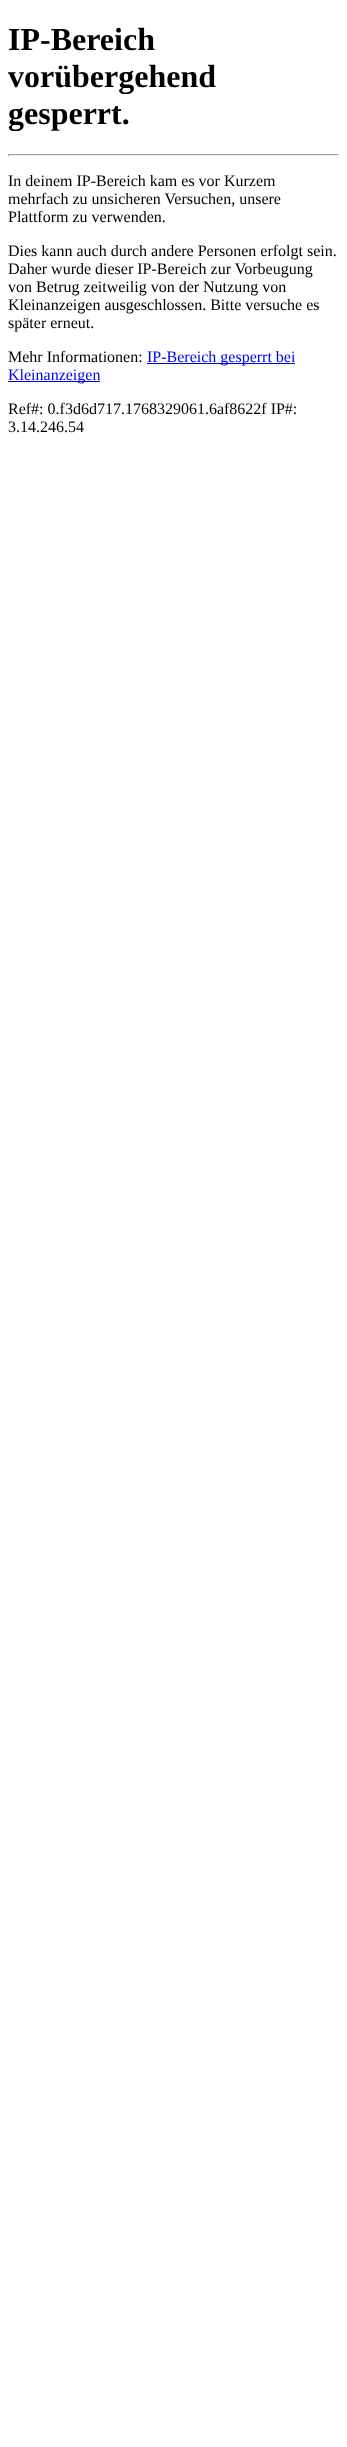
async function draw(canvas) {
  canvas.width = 347;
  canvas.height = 2447;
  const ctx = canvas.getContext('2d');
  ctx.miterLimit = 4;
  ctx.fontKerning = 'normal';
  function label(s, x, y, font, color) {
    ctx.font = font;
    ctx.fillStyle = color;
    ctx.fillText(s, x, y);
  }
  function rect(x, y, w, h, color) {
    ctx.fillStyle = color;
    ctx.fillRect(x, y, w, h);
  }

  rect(0, 0, 347, 2447, '#fff');
  label('IP-Bereich', 8, 50, 'bold 32px Liberation Serif', '#000');
  label('vorübergehend', 8, 87, 'bold 32px Liberation Serif', '#000');
  label('gesperrt.', 8, 124, 'bold 32px Liberation Serif', '#000');
  rect(8, 154, 331, 1, '#9f9f9f');
  rect(338, 154, 1, 2, '#eee');
  rect(8, 155, 331, 1, '#eee');
  rect(8, 154, 1, 2, '#9f9f9f');
  label('In deinem IP-Bereich kam es vor Kurzem', 8, 186, '16px Liberation Serif', '#000');
  label('mehrfach zu unsicheren Versuchen, unsere', 8, 204, '16px Liberation Serif', '#000');
  label('Plattform zu verwenden.', 8, 222, '16px Liberation Serif', '#000');
  label('Dies kann auch durch andere Personen erfolgt sein.', 8, 256, '16px Liberation Serif', '#000');
  label('Daher wurde dieser IP-Bereich zur Vorbeugung', 8, 274, '16px Liberation Serif', '#000');
  label('von Betrug zeitweilig von der Nutzung von', 8, 292, '16px Liberation Serif', '#000');
  label('Kleinanzeigen ausgeschlossen. Bitte versuche es', 8, 310, '16px Liberation Serif', '#000');
  label('später erneut.', 8, 328, '16px Liberation Serif', '#000');
  label('Mehr Informationen:', 8, 362, '16px Liberation Serif', '#000');
  rect(147, 363, 148, 1, '#00e');
  label('IP-Bereich gesperrt bei', 147, 362, '16px Liberation Serif', '#00e');
  rect(8, 381, 92, 1, '#00e');
  label('Kleinanzeigen', 8, 380, '16px Liberation Serif', '#00e');
  label('Ref#: 0.f3d6d717.1768329061.6af8622f IP#:', 8, 414, '16px Liberation Serif', '#000');
  label('3.14.246.54', 8, 432, '16px Liberation Serif', '#000');
}

draw(document.querySelector('canvas'));
